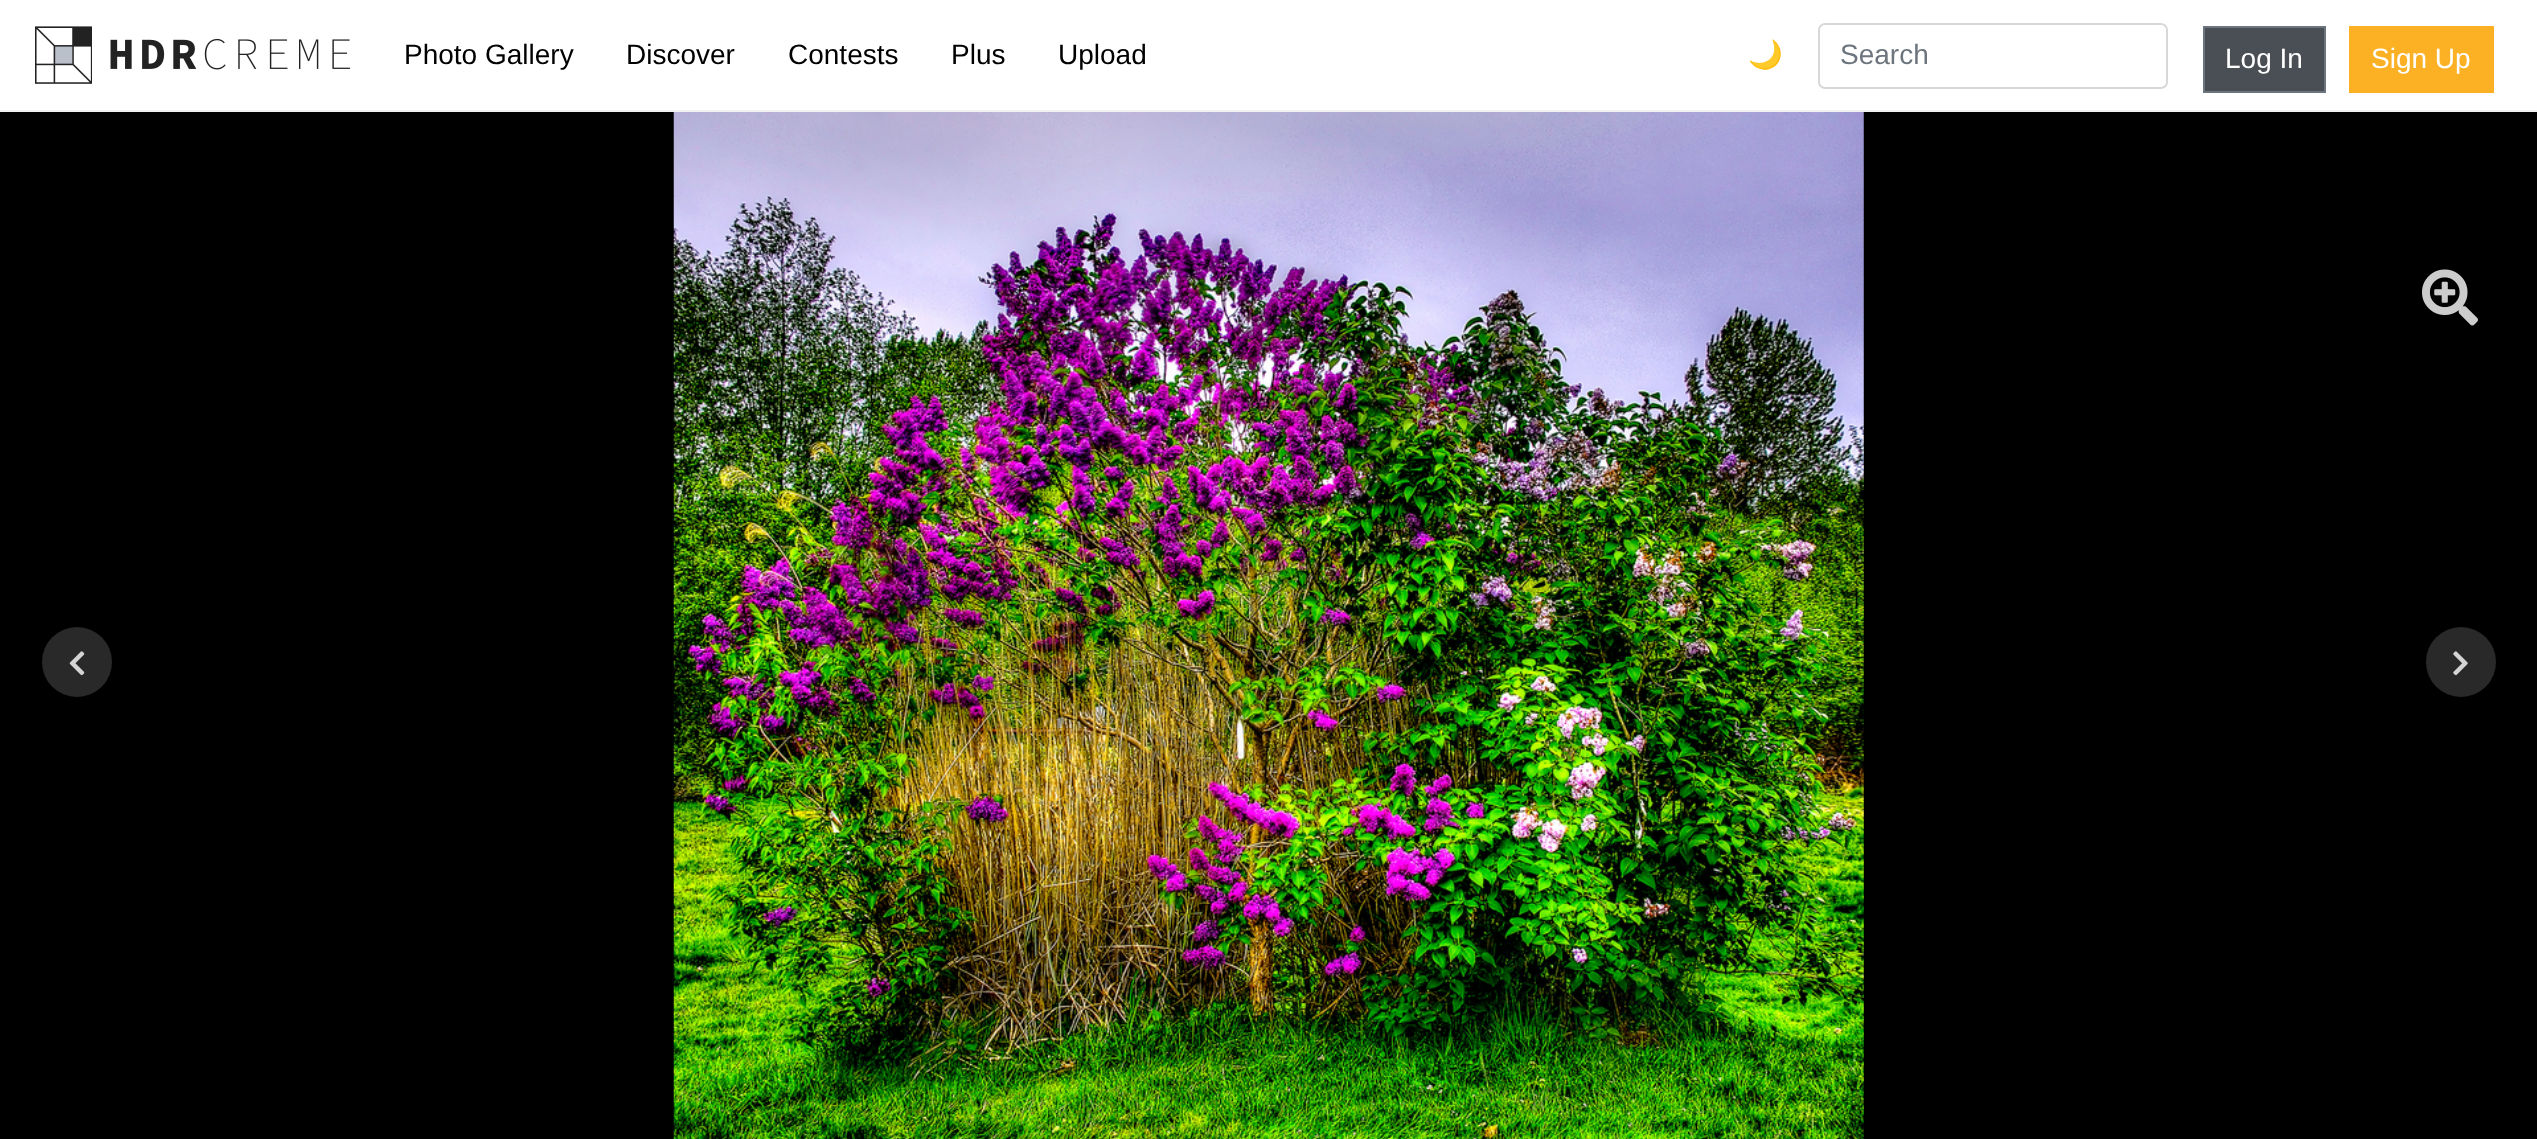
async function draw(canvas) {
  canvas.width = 2537;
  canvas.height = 1139;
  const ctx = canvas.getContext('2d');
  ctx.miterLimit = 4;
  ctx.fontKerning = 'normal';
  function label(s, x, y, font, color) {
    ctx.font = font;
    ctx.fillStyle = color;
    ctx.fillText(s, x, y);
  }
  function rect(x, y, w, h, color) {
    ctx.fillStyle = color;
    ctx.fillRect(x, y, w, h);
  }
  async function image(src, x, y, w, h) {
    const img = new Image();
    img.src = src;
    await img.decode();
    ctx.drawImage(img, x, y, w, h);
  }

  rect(0, 0, 2537, 1139, '#fff');
  rect(0, 110, 2537, 2, '#f2f2f2');
  await image('assets/img1.png', 35, 26, 315, 58);
  label('Photo Gallery', 404, 64, '28px Liberation Sans', '#000');
  label('Discover', 626, 64, '28px Liberation Sans', '#000');
  label('Contests', 788, 64, '28px Liberation Sans', '#000');
  label('Plus', 951, 64, '28px Liberation Sans', '#000');
  label('Upload', 1058, 64, '28px Liberation Sans', '#000');
  label('🌙', 1748, 64, '28px Noto Color Emoji', '#fca709');
  ctx.beginPath();
  ctx.roundRect(1819, 24, 348, 64, 6);
  ctx.strokeStyle = '#d8d8d8';
  ctx.lineWidth = 2;
  ctx.stroke();
  label('Search', 1840, 64, '28px Liberation Sans', '#6c757d');
  ctx.fillStyle = '#494f54';
  ctx.beginPath();
  ctx.rect(2204, 27, 121, 65);
  ctx.fill();
  ctx.strokeStyle = '#6c757d';
  ctx.stroke();
  label('Log In', 2225, 68, '28px Liberation Sans', '#fff');
  rect(2349, 26, 145, 67, '#fcb023');
  label('Sign Up', 2371, 68, '28px Liberation Sans', '#fff');
  rect(0, 112, 2537, 1027, '#000');
  await image('assets/img2.png', 673, 112, 1191, 1027);
  await image('assets/img3.png', 2422, 269, 56, 57);
  ctx.fillStyle = '#292929';
  ctx.beginPath();
  ctx.arc(77, 662, 35, 0, 2 * Math.PI);
  ctx.fill();
  await image('assets/img4.png', 69, 651, 16, 25);
  ctx.beginPath();
  ctx.arc(2461, 662, 35, 0, 2 * Math.PI);
  ctx.fill();
  await image('assets/img5.png', 2453, 651, 15, 25);
}

draw(document.querySelector('canvas'));
